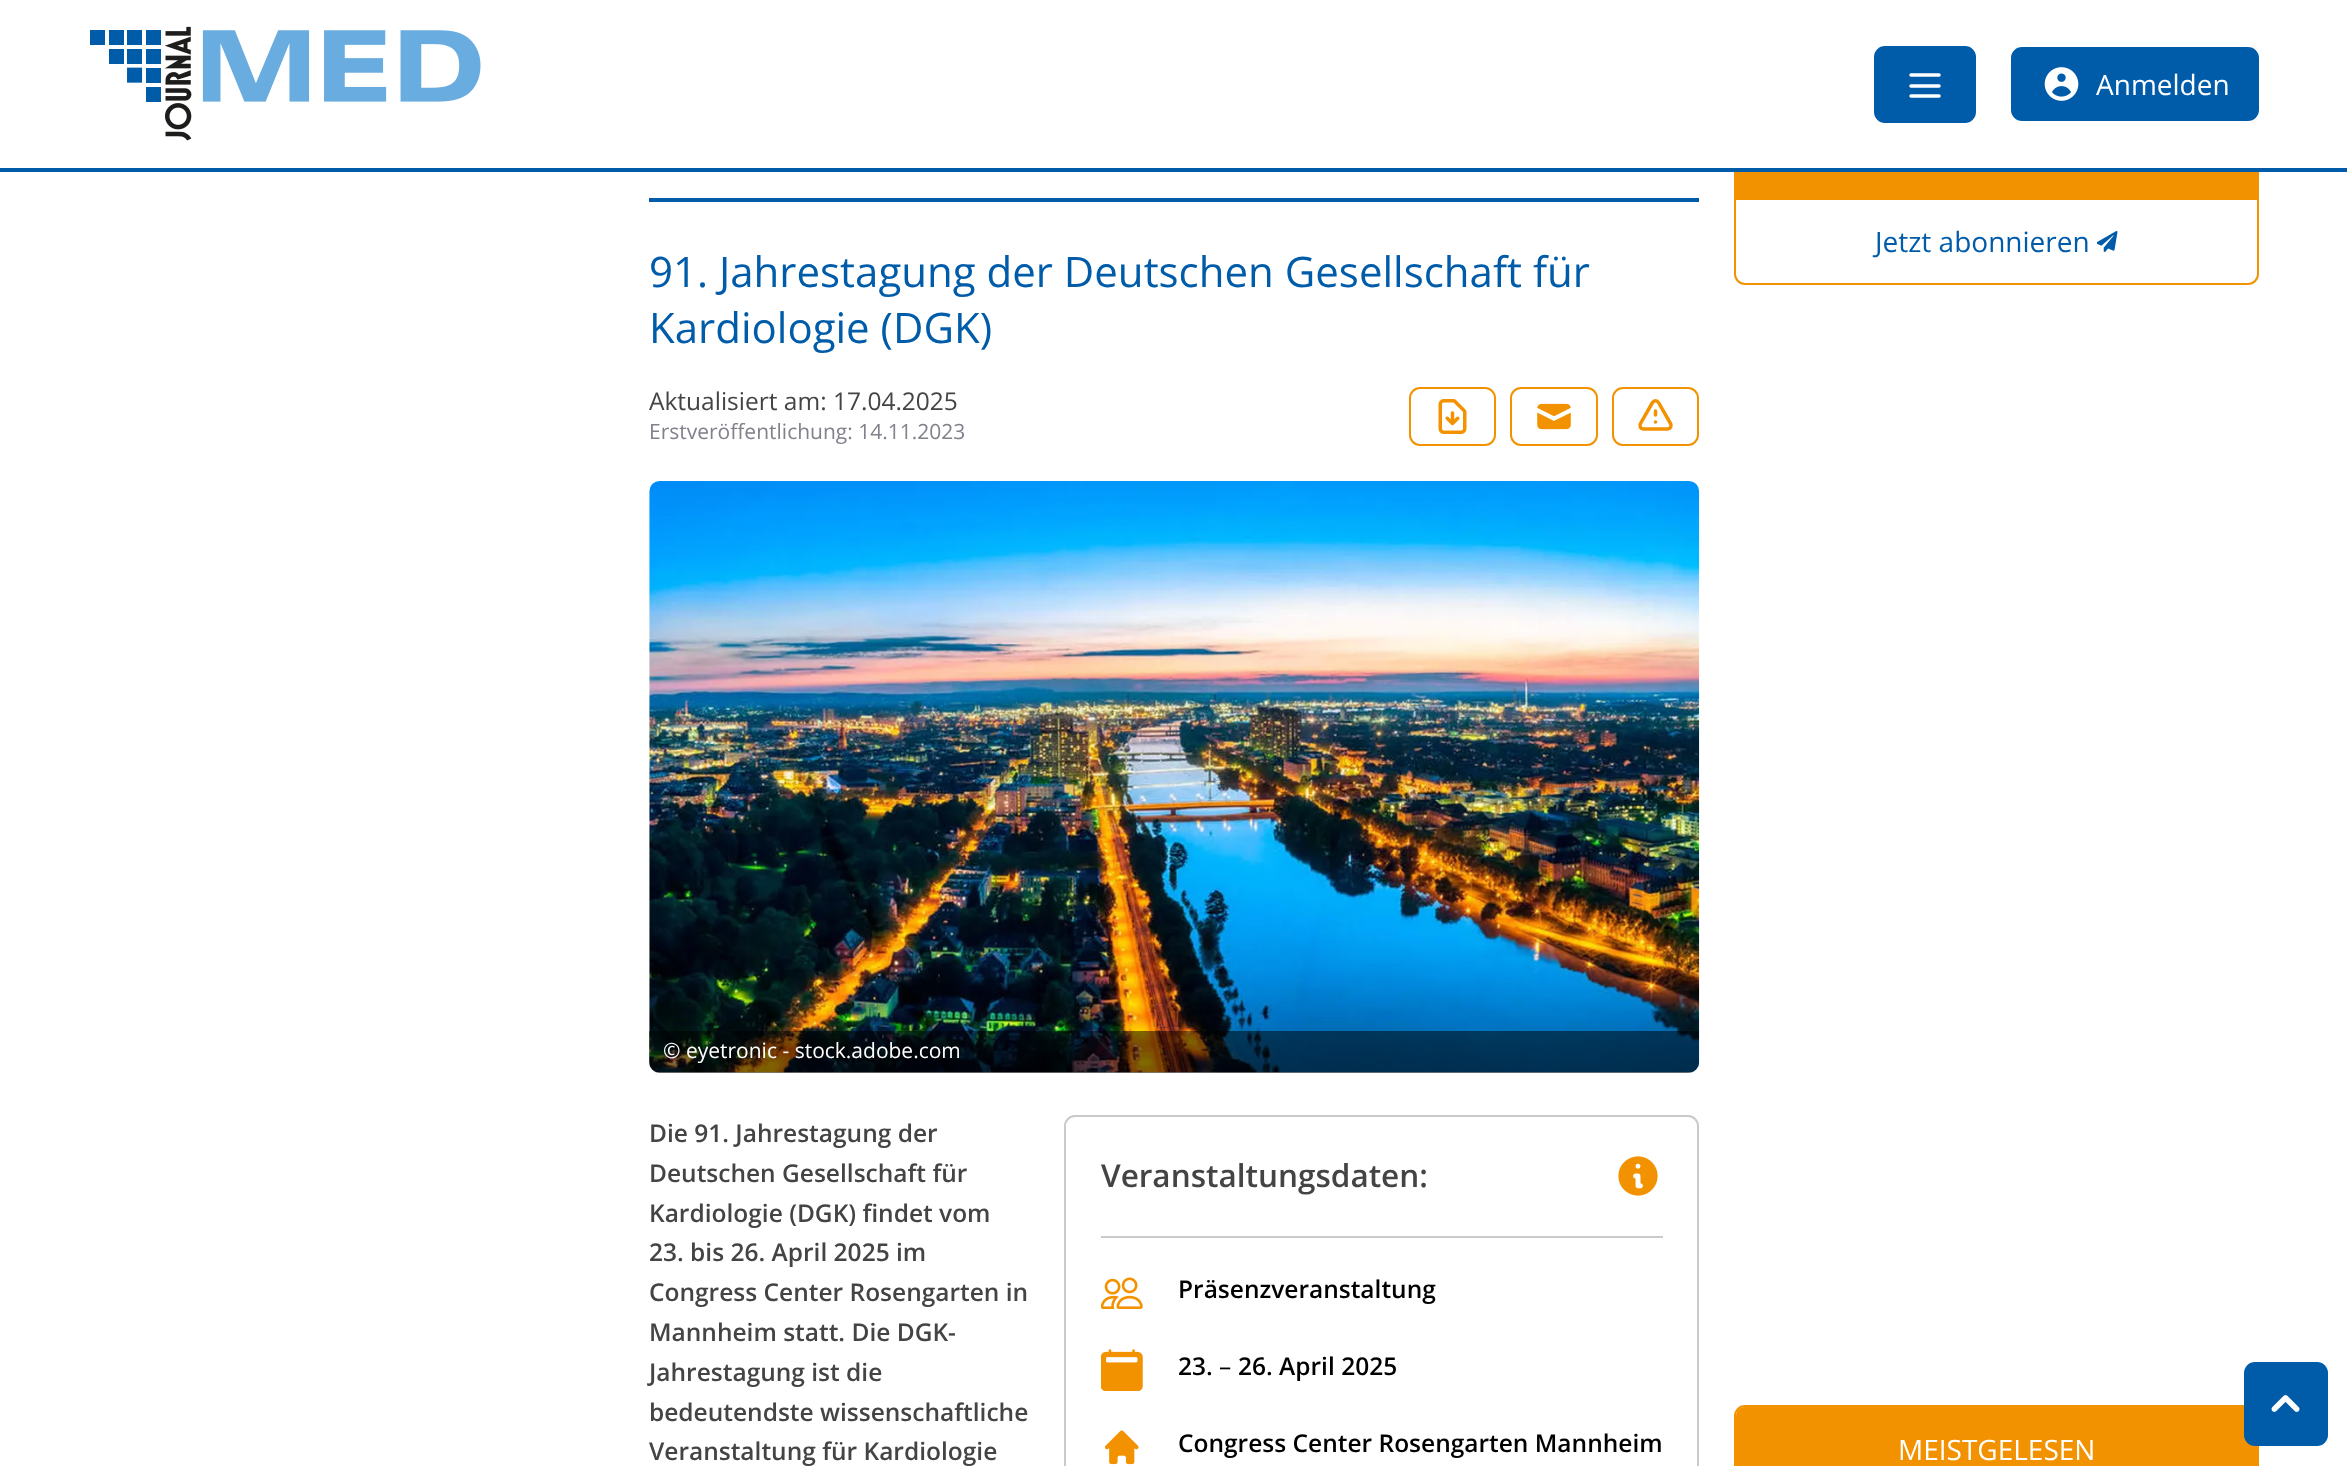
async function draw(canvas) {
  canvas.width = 2347;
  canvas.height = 1466;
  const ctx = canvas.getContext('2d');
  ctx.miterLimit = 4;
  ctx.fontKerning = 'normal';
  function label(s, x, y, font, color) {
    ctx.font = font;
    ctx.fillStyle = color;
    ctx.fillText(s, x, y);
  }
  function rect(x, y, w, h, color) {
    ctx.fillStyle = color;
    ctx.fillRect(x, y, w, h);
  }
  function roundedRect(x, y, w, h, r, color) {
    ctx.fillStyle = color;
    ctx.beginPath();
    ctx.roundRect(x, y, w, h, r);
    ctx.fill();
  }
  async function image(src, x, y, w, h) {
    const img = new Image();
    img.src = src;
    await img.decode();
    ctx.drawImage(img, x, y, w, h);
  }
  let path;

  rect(0, 0, 2347, 1466, '#fff');
  ctx.beginPath();
  ctx.roundRect(1735, 115, 523, 169, 10);
  ctx.strokeStyle = '#f39200';
  ctx.lineWidth = 2;
  ctx.stroke();
  rect(1734, 114, 525, 54, '#fff');
  rect(0, 168, 2347, 4, '#005ca9');
  await image('assets/img1.png', 90, 26, 391, 115);
  ctx.beginPath();
  ctx.roundRect(1875, 47, 100, 75, 10);
  ctx.fill();
  ctx.strokeStyle = '#005ca9';
  ctx.stroke();
  path = new Path2D('M1911 75H1939M1911 86H1939M1911 96H1939');
  ctx.strokeStyle = '#fff';
  ctx.lineWidth = 3.5;
  ctx.lineCap = 'round';
  ctx.lineJoin = 'round';
  ctx.stroke(path);
  ctx.beginPath();
  ctx.roundRect(2012, 48, 246, 72, 10);
  ctx.fill();
  ctx.strokeStyle = '#005ca9';
  ctx.lineWidth = 2;
  ctx.lineJoin = 'miter';
  ctx.stroke();
  await image('assets/img2.png', 2044, 67, 35, 34);
  label('Anmelden', 2096, 95, '28px Open Sans', '#fff');
  rect(649, 198, 1050, 4, '#005ca9');
  label('91. Jahrestagung der Deutschen Gesellschaft für', 649, 287, '42px Open Sans', '#005ca9');
  label('Kardiologie (DGK)', 649, 343, '42px Open Sans', '#005ca9');
  label('Aktualisiert am: 17.04.2025', 649, 410, '24.5px Open Sans', '#444');
  label('Erstveröffentlichung: 14.11.2023', 649, 439, '21px Open Sans', '#82818c');
  ctx.beginPath();
  ctx.roundRect(1410, 388, 85, 57, 10);
  ctx.strokeStyle = '#f39200';
  ctx.stroke();
  await image('assets/img3.png', 1438, 399, 29, 35);
  ctx.beginPath();
  ctx.roundRect(1511, 388, 86, 57, 10);
  ctx.stroke();
  await image('assets/img4.png', 1537, 403, 34, 27);
  ctx.beginPath();
  ctx.roundRect(1613, 388, 85, 57, 10);
  ctx.stroke();
  path = new Path2D('M1655.5 411V415M1655.5 422H1655.5M1643.5 429H1667.5C1670.5 429 1672 426 1670.5 423.5L1658.5 402.5C1657 400 1654 400 1652.5 402.5L1640.5 423.5C1639 426 1640.5 429 1643.5 429Z');
  ctx.lineWidth = 3.5;
  ctx.lineJoin = 'round';
  ctx.stroke(path);
  await image('assets/img5.png', 649, 481, 1051, 592);
  ctx.fillStyle = '#00000080';
  ctx.beginPath();
  ctx.roundRect(649, 1031, 1050, 42, [0, 0, 11, 11]);
  ctx.fill();
  label('© eyetronic - stock.adobe.com', 663, 1058, '21px Open Sans', '#fff');
  label('Die 91. Jahrestagung der', 649, 1142, '600 24.5px Open Sans', '#444');
  label('Deutschen Gesellschaft für', 649, 1182, '600 24.5px Open Sans', '#444');
  label('Kardiologie (DGK) findet vom', 649, 1222, '600 24.5px Open Sans', '#444');
  label('23. bis 26. April 2025 im', 649, 1261, '600 24.5px Open Sans', '#444');
  label('Congress Center Rosengarten in', 649, 1301, '600 24.5px Open Sans', '#444');
  label('Mannheim statt. Die DGK-', 649, 1341, '600 24.5px Open Sans', '#444');
  label('Jahrestagung ist die', 649, 1381, '600 24.5px Open Sans', '#444');
  label('bedeutendste wissenschaftliche', 649, 1421, '600 24.5px Open Sans', '#444');
  label('Veranstaltung für Kardiologie', 649, 1460, '600 24.5px Open Sans', '#444');
  ctx.beginPath();
  ctx.roundRect(1065, 1116, 633, 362, 10);
  ctx.strokeStyle = '#cacaca';
  ctx.lineWidth = 2;
  ctx.lineJoin = 'miter';
  ctx.stroke();
  rect(1101, 1236, 562, 2, '#cacaca');
  label('Veranstaltungsdaten:', 1101, 1187, '600 31.5px Open Sans', '#444');
  await image('assets/img6.png', 1618, 1156, 40, 40);
  await image('assets/img7.png', 1101, 1277, 42, 32);
  label('Präsenzveranstaltung', 1178, 1298, '600 24.5px Open Sans', '#000');
  await image('assets/img8.png', 1101, 1349, 42, 42);
  label('23.', 1178, 1375, '600 24.5px Open Sans', '#000');
  label('–', 1219, 1375, '24.5px Open Sans', '#000');
  label('26. April 2025', 1238, 1375, '600 24.5px Open Sans', '#000');
  await image('assets/img9.png', 1105, 1430, 34, 35);
  label('Congress Center Rosengarten Mannheim', 1178, 1452, '600 24.5px Open Sans', '#000');
  rect(1736, 172, 521, 28, '#f39200');
  label('Jetzt abonnieren', 1875, 252, '28px Open Sans', '#005ca9');
  await image('assets/img10.png', 2097, 231, 21, 21);
  ctx.beginPath();
  ctx.roundRect(1735, 1406, 523, 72, 10);
  ctx.strokeStyle = '#f39200';
  ctx.stroke();
  ctx.fillStyle = '#f39200';
  path = new Path2D('M1745 1407H2249C2254 1407 2258 1411 2258 1416V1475H1736V1416C1736 1411 1740 1407 1745 1407Z');
  ctx.fill(path);
  label('MEISTGELESEN', 1898, 1460, '28px Open Sans', '#fff');
  roundedRect(2244, 1362, 84, 84, 11, '#005ca9');
  await image('assets/img11.png', 2271, 1395, 29, 17);
}

draw(document.querySelector('canvas'));
